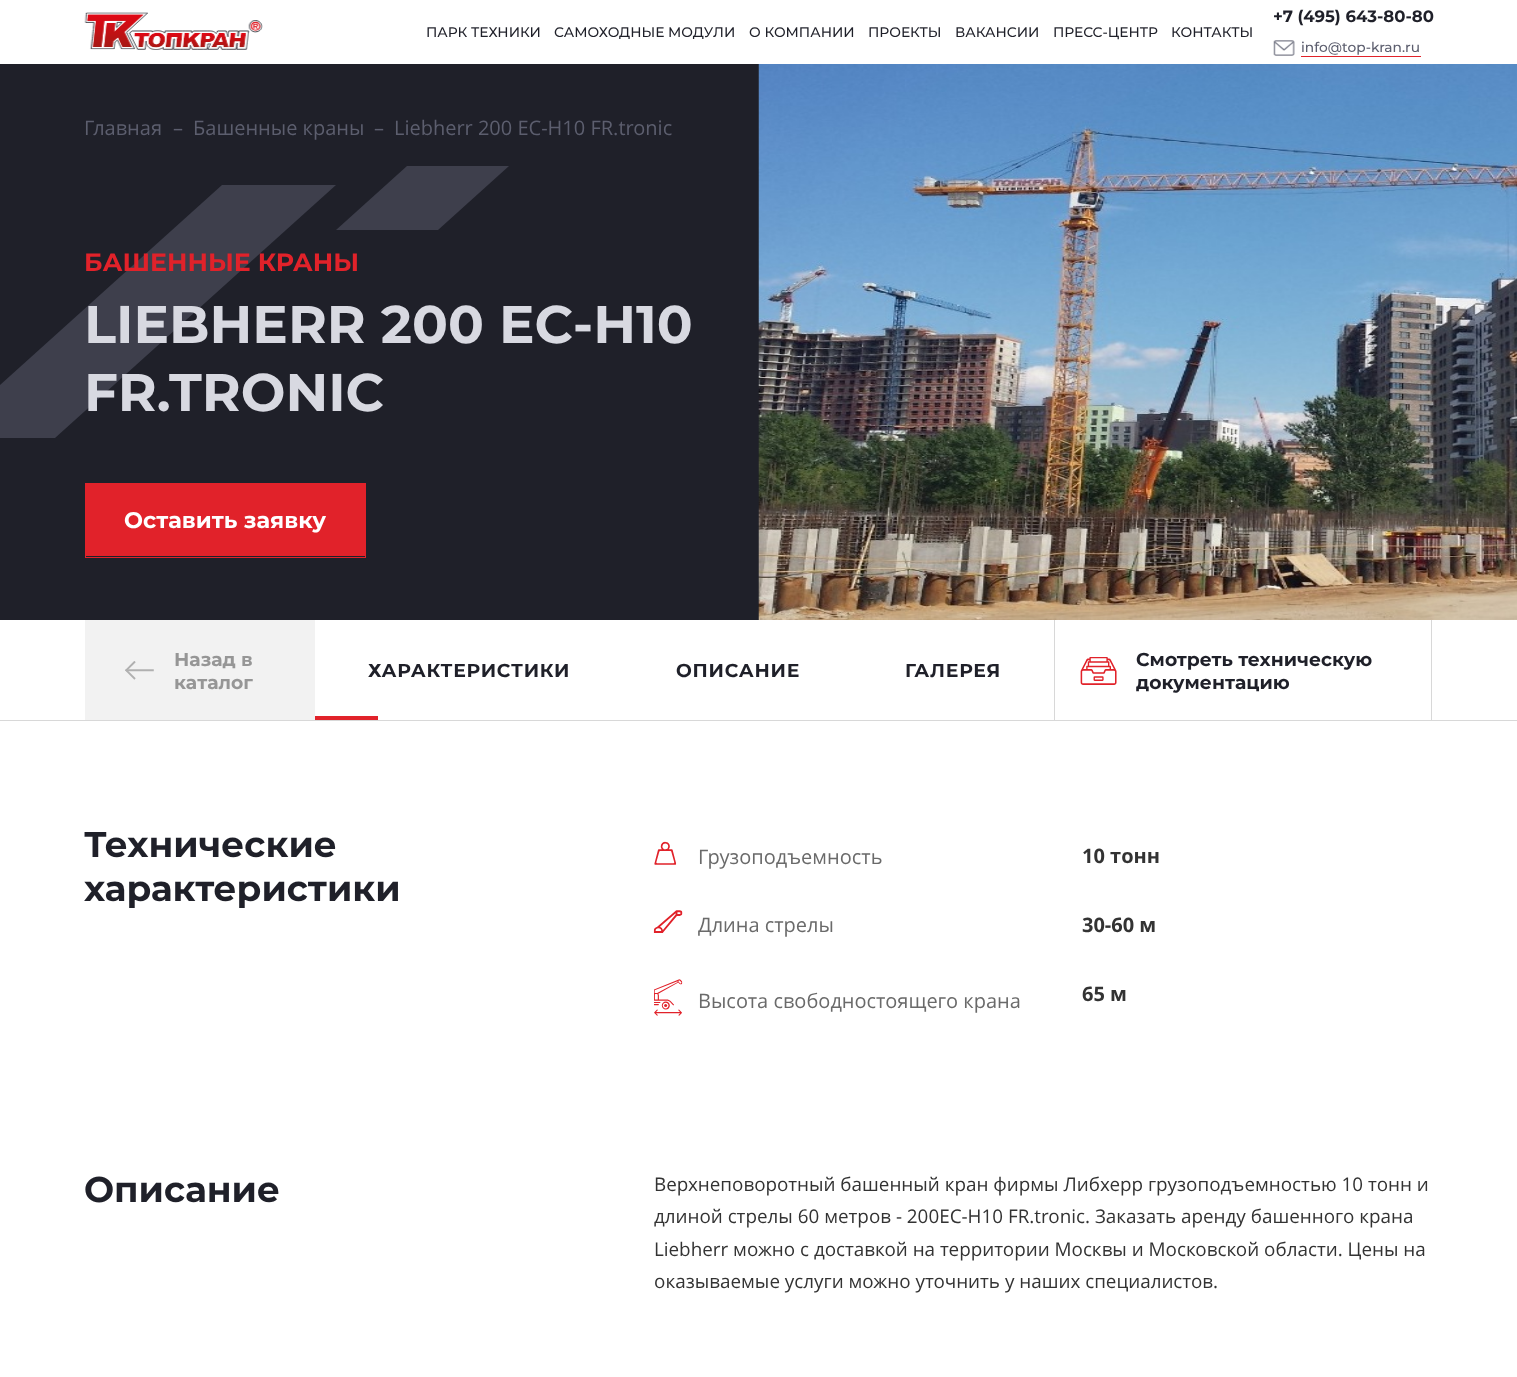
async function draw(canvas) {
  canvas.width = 1517;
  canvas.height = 1377;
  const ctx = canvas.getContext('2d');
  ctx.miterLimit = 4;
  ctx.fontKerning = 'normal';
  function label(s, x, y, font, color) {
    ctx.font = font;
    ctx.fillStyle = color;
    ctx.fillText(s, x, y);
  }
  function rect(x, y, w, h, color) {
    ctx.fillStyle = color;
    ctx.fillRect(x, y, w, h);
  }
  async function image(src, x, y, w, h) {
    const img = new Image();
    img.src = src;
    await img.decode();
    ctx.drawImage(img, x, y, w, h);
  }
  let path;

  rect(0, 0, 1517, 1377, '#fff');
  await image('assets/img1.png', 84, 12, 179, 38);
  label('ПАРК ТЕХНИКИ', 426, 37, '500 13.8px Montserrat', '#1f2029');
  label('САМОХОДНЫЕ МОДУЛИ', 554, 37, '500 13.8px Montserrat', '#1f2029');
  label('О КОМПАНИИ', 749, 37, '500 13.8px Montserrat', '#1f2029');
  label('ПРОЕКТЫ', 868, 37, '500 13.8px Montserrat', '#1f2029');
  label('ВАКАНСИИ', 955, 37, '500 13.8px Montserrat', '#1f2029');
  label('ПРЕСС-ЦЕНТР', 1053, 37, '500 13.8px Montserrat', '#1f2029');
  label('КОНТАКТЫ', 1171, 37, '500 13.8px Montserrat', '#1f2029');
  label('+7 (495) 643-80-80', 1273, 22, 'bold 16.5px Montserrat', '#1f2029');
  await image('assets/img2.png', 1273, 40, 22, 16);
  rect(1301, 56, 120, 1, '#e1222a');
  label('info@top-kran.ru', 1301, 52, '500 13.75px Montserrat', '#5c5e6e');
  rect(0, 64, 759, 556, '#1f2029');
  await image('assets/img3.png', 758, 64, 759, 556);
  label('Главная', 84, 135, '20px Open Sans', '#5c5e6e');
  label('–', 173, 135, '20px Open Sans', '#5c5e6e');
  label('Башенные краны', 193, 135, '20px Open Sans', '#5c5e6e');
  label('–', 374, 135, '20px Open Sans', '#5c5e6e');
  label('Liebherr 200 EC-H10 FR.tronic', 394, 135, '20px Open Sans', '#5c5e6e');
  ctx.fillStyle = '#3e3f4c';
  path = new Path2D('M222 185H336L55 438H-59Z');
  ctx.fill(path);
  path = new Path2D('M407 166H509L438 230H336Z');
  ctx.fill(path);
  label('БАШЕННЫЕ КРАНЫ', 84, 271, 'bold 25.1px Montserrat', '#e1222a');
  label('LIEBHERR 200 EC-H10', 84, 343, 'bold 53px Montserrat', '#d8d9e1');
  label('FR.TRONIC', 84, 411, 'bold 53px Montserrat', '#d8d9e1');
  ctx.strokeStyle = '#e1222a';
  ctx.strokeRect(85.5, 483.5, 280, 74);
  rect(86, 484, 279, 72, '#e1222a');
  label('Оставить заявку', 124, 528, 'bold 22.5px Montserrat', '#fff');
  rect(0, 720, 1517, 1, '#d8d8d8');
  rect(85, 620, 230, 100, '#f2f2f2');
  await image('assets/img4.png', 125, 661, 29, 19);
  label('Назад в', 174, 666, 'bold 18.75px Montserrat', '#969696');
  label('каталог', 174, 689, 'bold 18.75px Montserrat', '#969696');
  ctx.letterSpacing = '0.75px';
  label('ХАРАКТЕРИСТИКИ', 368, 677, 'bold 18.75px Montserrat', '#1f2029');
  label('ОПИСАНИЕ', 676, 677, 'bold 18.75px Montserrat', '#1f2029');
  label('ГАЛЕРЕЯ', 905, 677, 'bold 18.75px Montserrat', '#1f2029');
  rect(315, 716, 63, 4, '#e1222a');
  rect(1431, 620, 1, 100, '#d8d8d8');
  rect(1054, 620, 1, 100, '#d8d8d8');
  await image('assets/img5.png', 1080, 657, 37, 28);
  ctx.letterSpacing = '0px';
  label('Смотреть техническую', 1136, 666, 'bold 18.75px Montserrat', '#1f2029');
  label('документацию', 1136, 689, 'bold 18.75px Montserrat', '#1f2029');
  label('Технические', 84, 857, 'bold 35.75px Montserrat', '#1f2029');
  label('характеристики', 84, 901, 'bold 35.75px Montserrat', '#1f2029');
  await image('assets/img6.png', 654, 841, 23, 24);
  label('Грузоподъемность', 698, 864, '20px Open Sans', '#6a6a6a');
  label('10 тонн', 1082, 863, 'bold 20px Open Sans', '#333');
  await image('assets/img7.png', 653, 910, 30, 23);
  label('Длина стрелы', 698, 932, '20px Open Sans', '#6a6a6a');
  label('30-60 м', 1082, 932, 'bold 20px Open Sans', '#333');
  await image('assets/img8.png', 654, 979, 29, 37);
  label('Высота свободностоящего крана', 698, 1008, '20px Open Sans', '#6a6a6a');
  label('65 м', 1082, 1001, 'bold 20px Open Sans', '#333');
  label('Описание', 84, 1202, 'bold 35.75px Montserrat', '#1f2029');
  label('Верхнеповоротный башенный кран фирмы Либхерр грузоподъемностью 10 тонн и', 654, 1191, '18.85px Open Sans', '#333');
  label('длиной стрелы 60 метров - 200EC-H10 FR.tronic. Заказать аренду башенного крана', 654, 1223, '18.85px Open Sans', '#333');
  label('Liebherr можно с доставкой на территории Москвы и Московской области. Цены на', 654, 1256, '18.85px Open Sans', '#333');
  label('оказываемые услуги можно уточнить у наших специалистов.', 654, 1288, '18.85px Open Sans', '#333');
}

draw(document.querySelector('canvas'));
